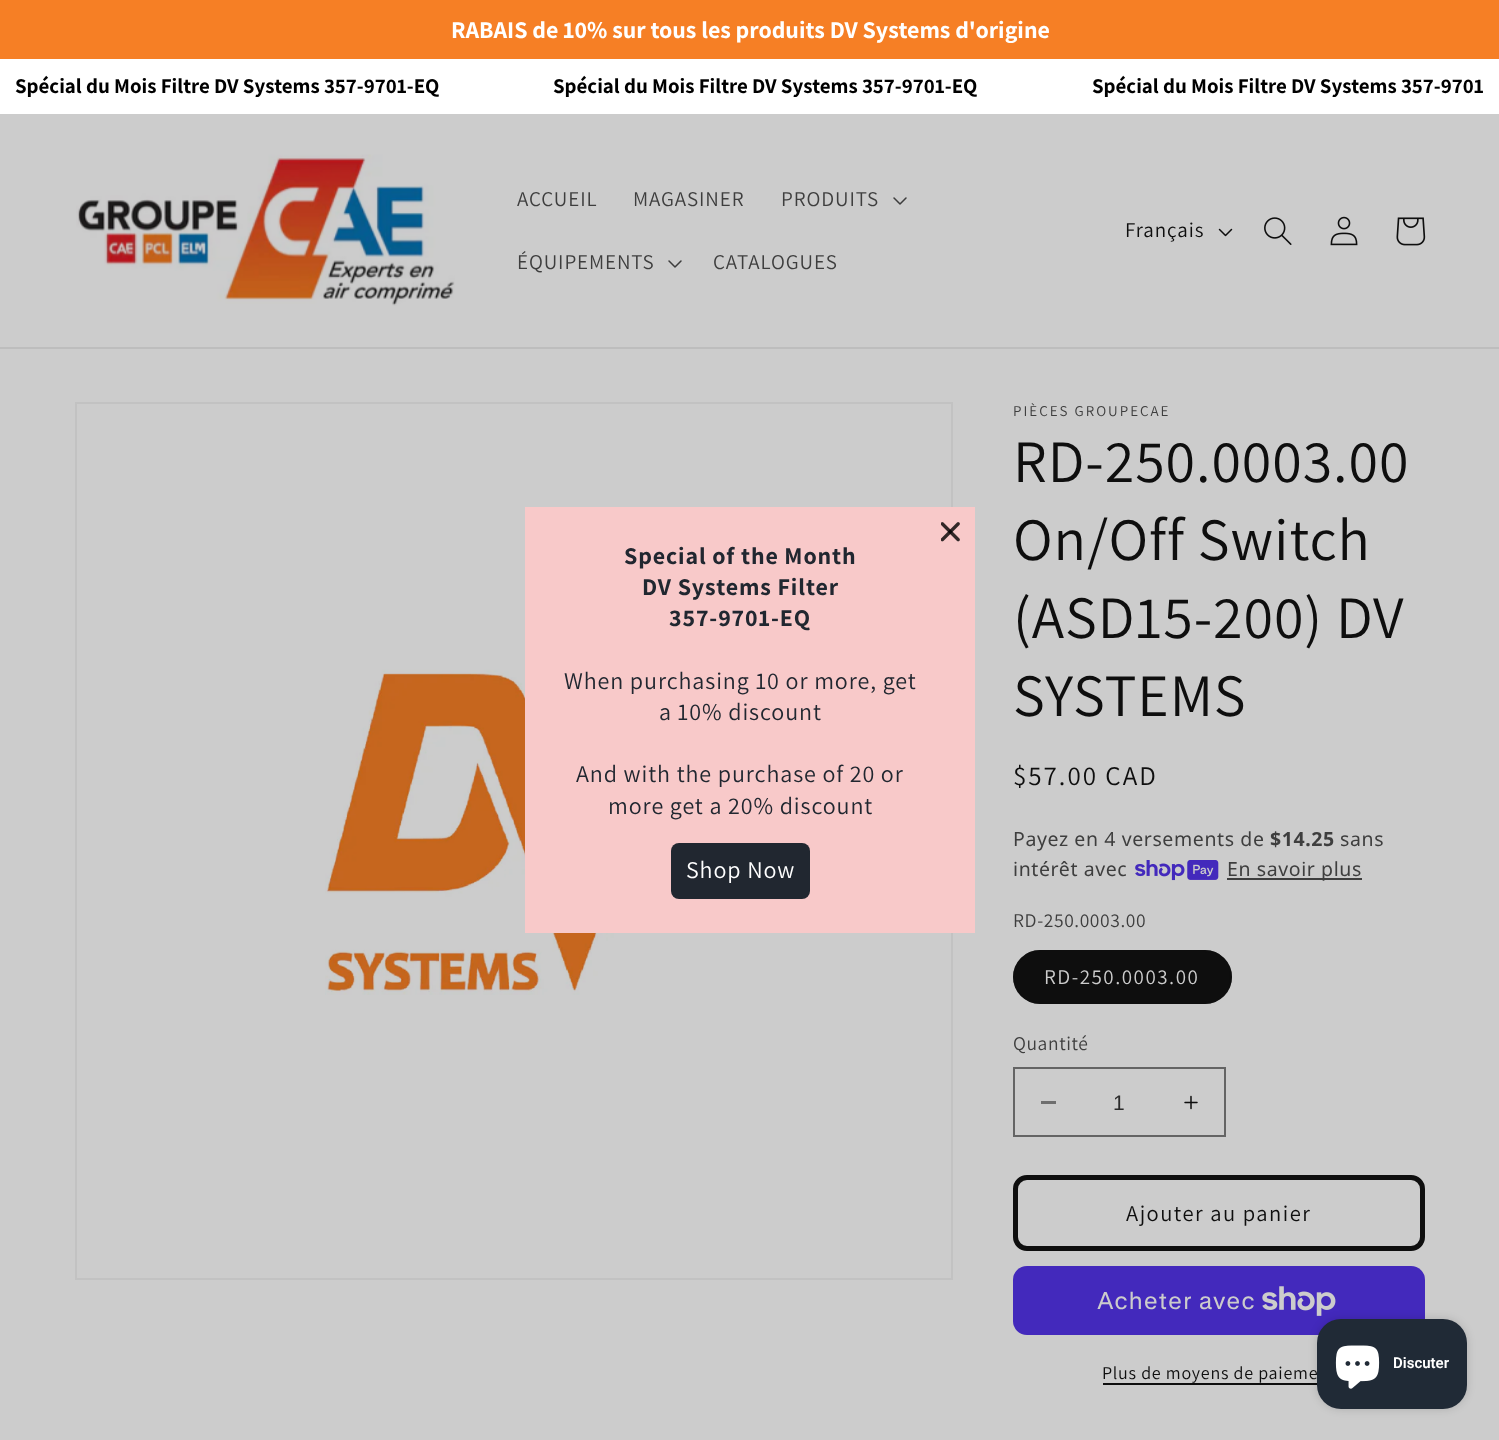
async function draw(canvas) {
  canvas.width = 1499;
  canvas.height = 1440;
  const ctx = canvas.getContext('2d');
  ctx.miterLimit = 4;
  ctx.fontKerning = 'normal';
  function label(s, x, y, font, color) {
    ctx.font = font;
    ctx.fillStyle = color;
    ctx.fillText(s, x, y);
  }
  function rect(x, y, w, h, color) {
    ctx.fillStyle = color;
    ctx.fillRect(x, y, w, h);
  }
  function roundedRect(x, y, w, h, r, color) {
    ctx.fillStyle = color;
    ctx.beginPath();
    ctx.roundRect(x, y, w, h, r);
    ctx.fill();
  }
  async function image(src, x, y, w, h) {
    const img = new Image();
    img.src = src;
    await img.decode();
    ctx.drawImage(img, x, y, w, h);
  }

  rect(0, 0, 1499, 1440, '#ccc');
  rect(0, 0, 1499, 59, '#f67f25');
  label('RABAIS de 10% sur tous les produits DV Systems d\'origine', 451, 38, 'bold 24px Assistant', '#fff');
  rect(0, 59, 1499, 55, '#fff');
  label('Spécial du Mois Filtre DV Systems 357-9701-EQ', 15, 93, 'bold 21px Assistant', '#000');
  label('Spécial du Mois Filtre DV Systems 357-9701-EQ', 553, 93, 'bold 21px Assistant', '#000');
  label('Spécial du Mois Filtre DV Systems 357-9701', 1092, 93, 'bold 21px Assistant', '#000');
  rect(0, 347, 1499, 2, '#bdbdbd');
  await image('assets/img1.png', 76, 154, 379, 152);
  ctx.letterSpacing = '0.9px';
  label('ACCUEIL', 517, 206, '21px Assistant', '#3e3e3e');
  label('MAGASINER', 633, 206, '21px Assistant', '#3e3e3e');
  label('PRODUITS', 781, 206, '21px Assistant', '#3e3e3e');
  await image('assets/img2.png', 893, 197, 14, 8);
  label('ÉQUIPEMENTS', 517, 269, '21px Assistant', '#3e3e3e');
  await image('assets/img2.png', 668, 260, 14, 8);
  label('CATALOGUES', 713, 269, '21px Assistant', '#3e3e3e');
  label('Français', 1125, 237, '21px Assistant', '#0e0e0e');
  await image('assets/img3.png', 1218, 228, 15, 9);
  await image('assets/img4.png', 1264, 217, 28, 28);
  await image('assets/img5.png', 1330, 216, 28, 30);
  await image('assets/img6.png', 1396, 217, 30, 29);
  ctx.strokeStyle = '#c2c2c2';
  ctx.lineWidth = 2;
  ctx.strokeRect(76, 403, 876, 876);
  await image('assets/img8.png', 325, 625, 388, 370);
  rect(525, 507, 450, 426, '#f8c9c9');
  await image('assets/img7.png', 941, 522, 19, 20);
  label('Special of the Month', 624, 564, 'bold 24px Assistant', '#212730');
  label('DV Systems Filter', 642, 595, 'bold 24px Assistant', '#212730');
  label('357-9701-EQ', 669, 626, 'bold 24px Assistant', '#212730');
  label('When purchasing 10 or more, get', 564, 689, '24px Assistant', '#212730');
  label('a 10% discount', 659, 720, '24px Assistant', '#212730');
  label('And with the purchase of 20 or', 576, 782, '24px Assistant', '#212730');
  label('more get a 20% discount', 608, 814, '24px Assistant', '#212730');
  roundedRect(671, 843, 139, 56, 8, '#212730');
  label('Shop Now', 686, 878, '24px Assistant', '#fff');
  ctx.letterSpacing = '2px';
  label('PIÈCES GROUPECAE', 1013, 416, '15px Assistant', '#3e3e3e');
  ctx.letterSpacing = '0.9px';
  label('RD-250.0003.00', 1013, 482, '60px Assistant', '#0e0e0e');
  label('On/Off Switch', 1013, 560, '60px Assistant', '#0e0e0e');
  label('(ASD15-200) DV', 1013, 638, '60px Assistant', '#0e0e0e');
  label('SYSTEMS', 1013, 716, '60px Assistant', '#0e0e0e');
  ctx.letterSpacing = '2px';
  label('$57.00 CAD', 1013, 785, '27px Assistant', '#0e0e0e');
  ctx.letterSpacing = '0.6px';
  label('Payez en 4 versements de', 1013, 846, '19.5px Noto Sans', '#3e3e3e');
  label('$14.25', 1270, 846, 'bold 19.5px Noto Sans', '#3e3e3e');
  label('sans', 1340, 846, '19.5px Noto Sans', '#3e3e3e');
  label('intérêt avec', 1013, 876, '19.5px Noto Sans', '#3e3e3e');
  await image('assets/img9.png', 1135, 860, 84, 21);
  rect(1227, 878, 135, 2, '#3e3e3e');
  label('En savoir plus', 1227, 876, '19.5px Noto Sans', '#3e3e3e');
  label('RD-250.0003.00', 1013, 927, '19.5px Assistant', '#3e3e3e');
  roundedRect(1013, 950, 219, 54, 27, '#0e0e0e');
  ctx.beginPath();
  ctx.roundRect(1014, 951, 217, 52, 26);
  ctx.strokeStyle = '#0e0e0e8c';
  ctx.stroke();
  ctx.letterSpacing = '1.5px';
  label('RD-250.0003.00', 1044, 984, '21px Assistant', '#ccc');
  ctx.letterSpacing = '0.6px';
  label('Quantité', 1013, 1050, '19.5px Assistant', '#3e3e3e');
  rect(1041, 1101, 15, 3, '#6e6e6e');
  await image('assets/img10.png', 1184, 1095, 14, 15);
  ctx.strokeStyle = '#646464';
  ctx.strokeRect(1014, 1068, 211, 68);
  ctx.letterSpacing = '0px';
  label('1', 1113, 1110, '21px Liberation Sans', '#2b2b2b');
  ctx.beginPath();
  ctx.roundRect(1015.5, 1177.5, 407, 71, 11.5);
  ctx.strokeStyle = '#0e0e0e';
  ctx.lineWidth = 5;
  ctx.stroke();
  ctx.letterSpacing = '1.5px';
  label('Ajouter au panier', 1126, 1221, '22.5px Assistant', '#0e0e0e');
  roundedRect(1013, 1266, 412, 69, 14, '#4329bc');
  ctx.letterSpacing = '0.9px';
  label('Acheter avec', 1097, 1309, '24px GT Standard', '#ccc');
  await image('assets/img11.png', 1262, 1286, 74, 30);
  ctx.letterSpacing = '0.75px';
  label('Plus de moyens de paieme', 1102, 1379, '18px Assistant', '#0e0e0e');
  rect(1103, 1383, 214, 2, '#0e0e0e');
  ctx.fillStyle = '#00000026';
  ctx.filter = 'blur(4px)';
  ctx.beginPath();
  ctx.roundRect(1317, 1319, 150, 90, 24);
  ctx.fill();
  ctx.filter = 'none';
  roundedRect(1317, 1319, 150, 90, 24, '#202a36');
  await image('assets/img12.png', 1335, 1345, 45, 44);
  ctx.save();
  ctx.beginPath();
  ctx.rect(1394, 1341, 55, 45);
  ctx.clip();
  ctx.letterSpacing = '0px';
  label('Discuter', 1393, 1368, '600 15px Roboto', '#fff');
  ctx.restore();
}

draw(document.querySelector('canvas'));
